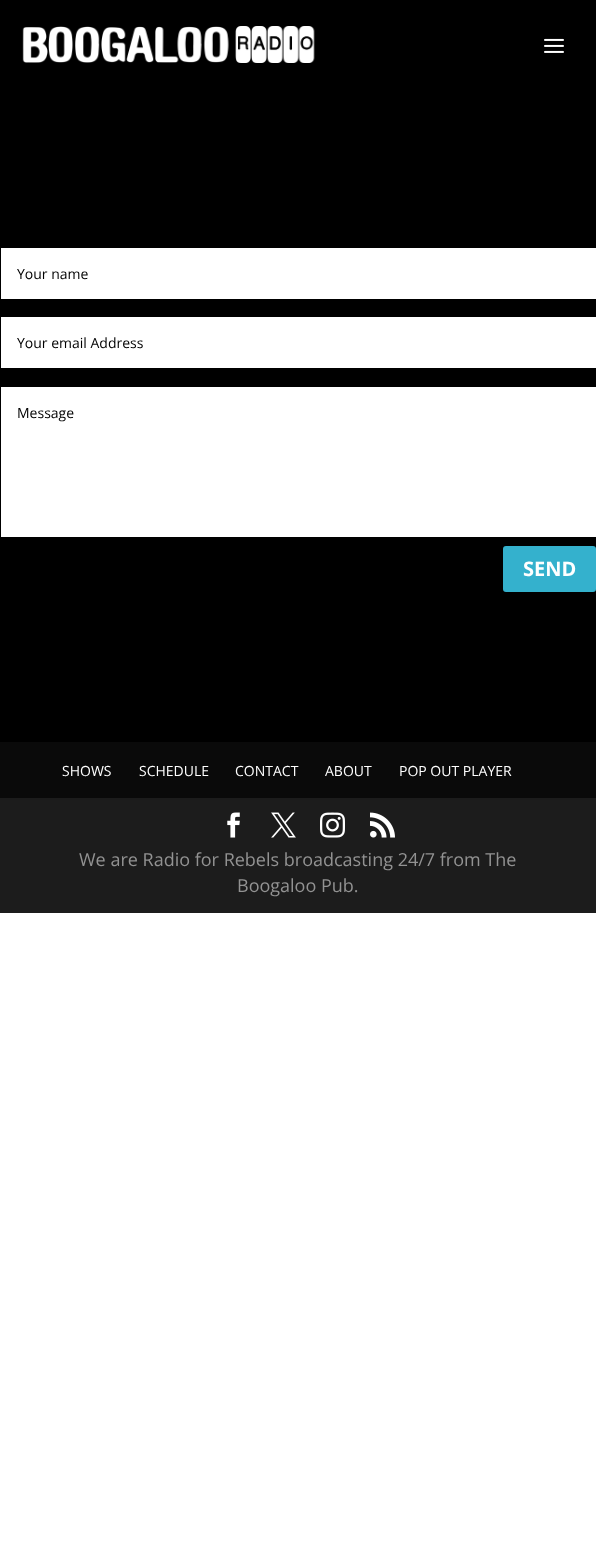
async function draw(canvas) {
  canvas.width = 596;
  canvas.height = 1545;
  const ctx = canvas.getContext('2d');
  ctx.miterLimit = 4;
  ctx.fontKerning = 'normal';
  function label(s, x, y, font, color) {
    ctx.font = font;
    ctx.fillStyle = color;
    ctx.fillText(s, x, y);
  }
  function rect(x, y, w, h, color) {
    ctx.fillStyle = color;
    ctx.fillRect(x, y, w, h);
  }
  function roundedRect(x, y, w, h, r, color) {
    ctx.fillStyle = color;
    ctx.beginPath();
    ctx.roundRect(x, y, w, h, r);
    ctx.fill();
  }
  async function image(src, x, y, w, h) {
    const img = new Image();
    img.src = src;
    await img.decode();
    ctx.drawImage(img, x, y, w, h);
  }

  rect(0, 0, 596, 1545, '#fff');
  rect(0, 0, 596, 742, '#000');
  await image('assets/img1.png', 22, 26, 293, 37);
  await image('assets/img2.png', 544, 38, 20, 15);
  rect(1, 248, 595, 51, '#fff');
  label('Your name', 17, 279, '14px Open Sans', '#000');
  rect(1, 317, 595, 51, '#fff');
  label('Your email Address', 17, 348, '14px Open Sans', '#000');
  rect(1, 387, 595, 150, '#fff');
  label('Message', 17, 418, '14px Open Sans', '#000');
  roundedRect(503, 546, 93, 46, 3, '#34b1cd');
  label('SEND', 523, 576, 'bold 20px Open Sans', '#fff');
  rect(0, 742, 596, 56, '#0a0a0a');
  label('SHOWS', 62, 776, '14px Open Sans', '#fff');
  label('SCHEDULE', 139, 776, '14px Open Sans', '#fff');
  label('CONTACT', 235, 776, '14px Open Sans', '#fff');
  label('ABOUT', 325, 776, '14px Open Sans', '#fff');
  label('POP OUT PLAYER', 399, 776, '14px Open Sans', '#fff');
  rect(0, 798, 596, 115, '#1c1c1c');
  await image('assets/img3.png', 227, 812, 13, 26);
  await image('assets/img4.png', 271, 812, 25, 26);
  await image('assets/img5.png', 320, 812, 25, 26);
  await image('assets/img6.png', 370, 812, 25, 26);
  label('We are Radio for Rebels broadcasting 24/7 from The', 79, 866, '18px Open Sans', '#929292');
  label('Boogaloo Pub.', 237, 892, '18px Open Sans', '#929292');
}

draw(document.querySelector('canvas'));
